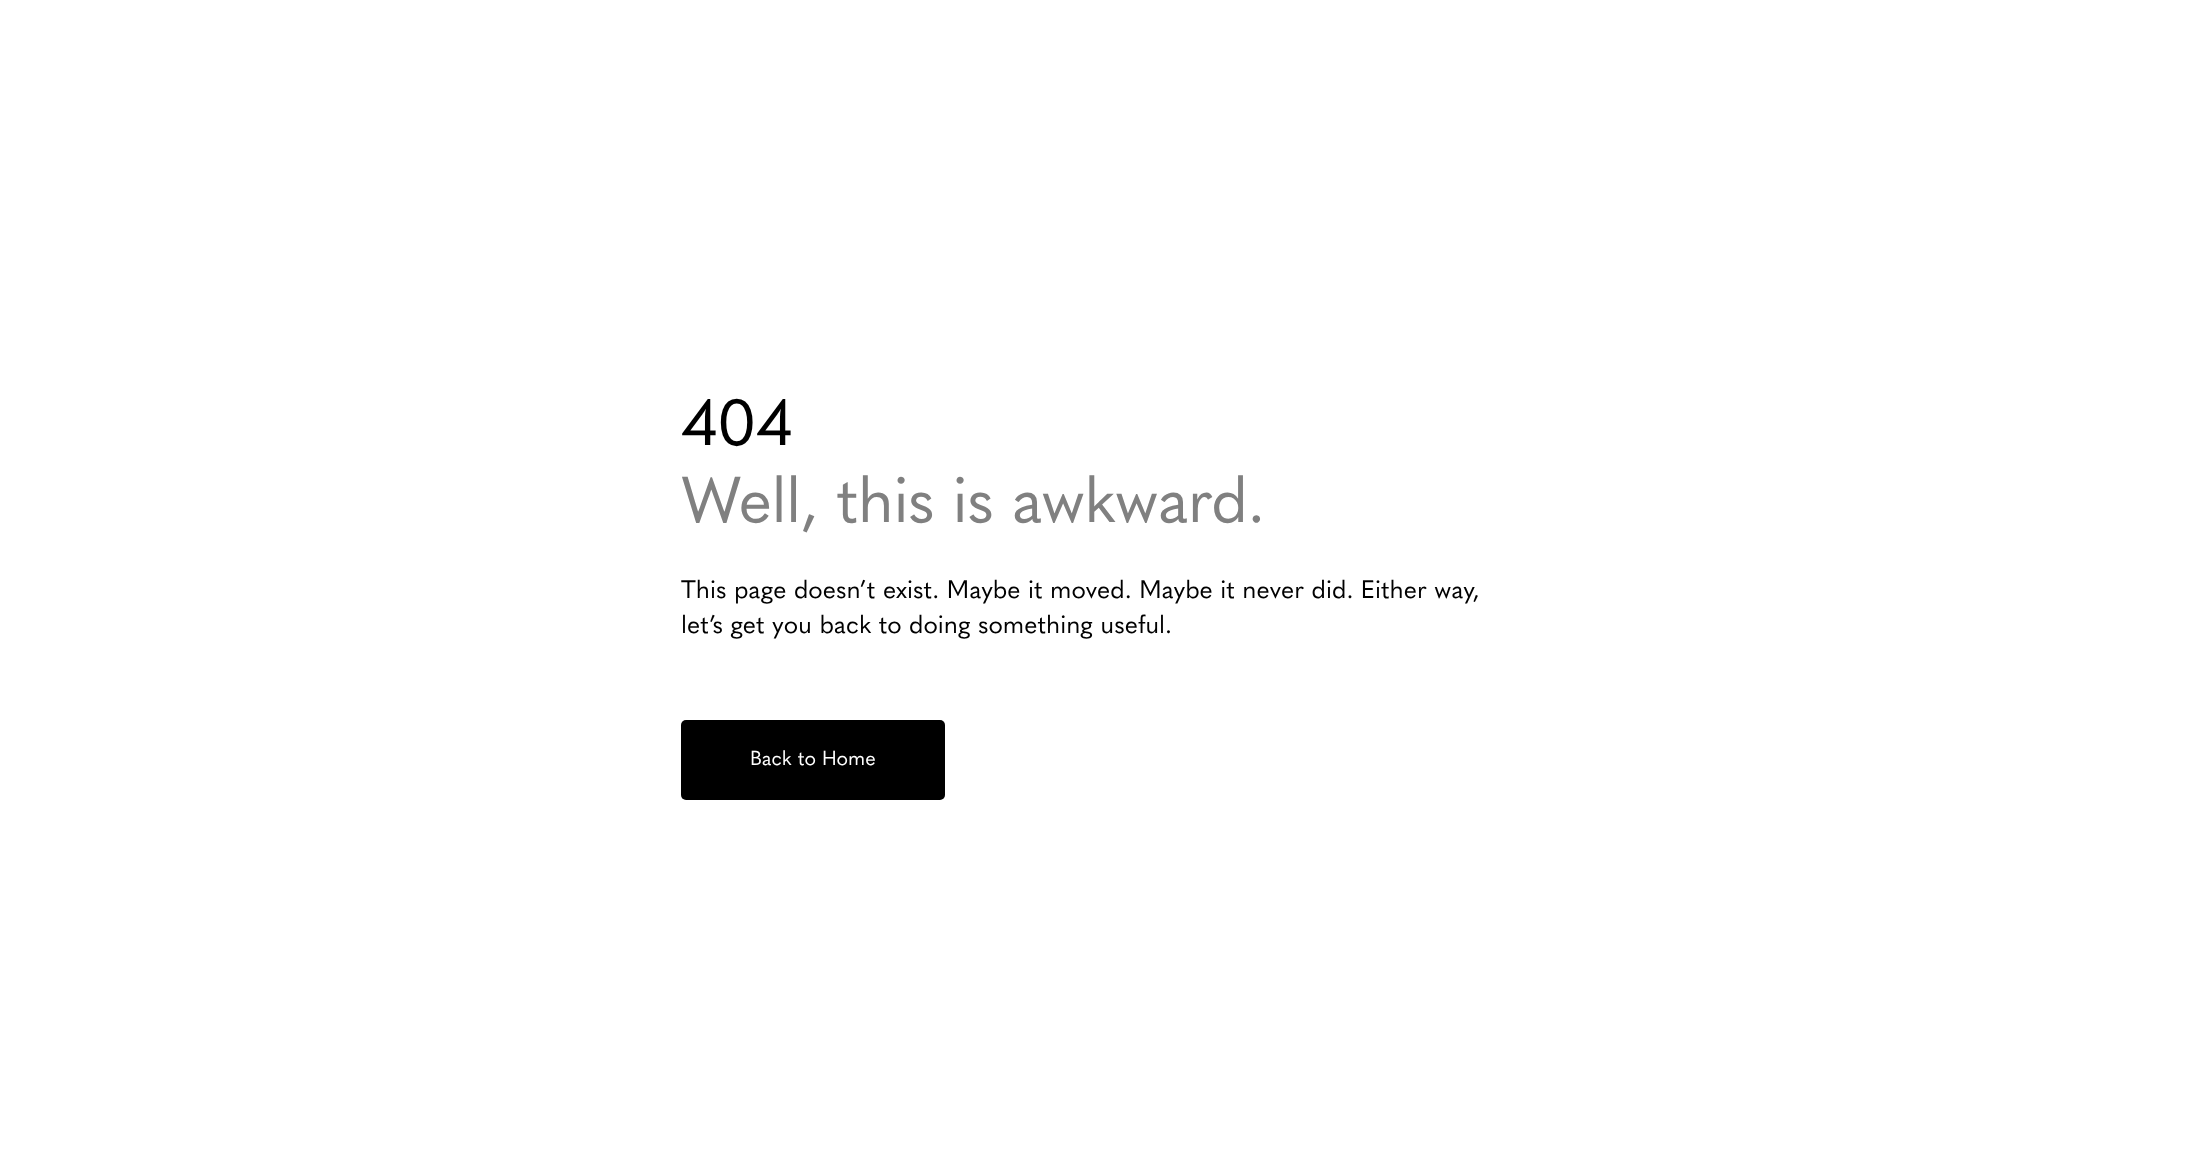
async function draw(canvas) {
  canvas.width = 2210;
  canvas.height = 1158;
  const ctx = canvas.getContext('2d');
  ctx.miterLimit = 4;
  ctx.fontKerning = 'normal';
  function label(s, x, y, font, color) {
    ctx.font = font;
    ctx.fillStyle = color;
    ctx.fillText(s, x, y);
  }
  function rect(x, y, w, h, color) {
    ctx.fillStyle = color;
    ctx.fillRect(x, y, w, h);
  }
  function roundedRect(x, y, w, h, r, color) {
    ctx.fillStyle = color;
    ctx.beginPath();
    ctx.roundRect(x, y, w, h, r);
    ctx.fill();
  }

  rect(0, 0, 2210, 1158, '#fff');
  ctx.letterSpacing = '-0.6px';
  label('404', 681, 445, '63.75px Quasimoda', '#000');
  label('Well, this is awkward.', 681, 522, '63.75px Quasimoda', '#808080');
  ctx.letterSpacing = '0px';
  label('This page doesn’t exist. Maybe it moved. Maybe it never did. Either way,', 681, 598, '25px Quasimoda', '#000');
  label('let’s get you back to doing something useful.', 681, 633, '25px Quasimoda', '#000');
  roundedRect(681, 720, 264, 80, 5, '#000');
  label('Back to Home', 750, 765, '20px Quasimoda', '#fff');
}

draw(document.querySelector('canvas'));
